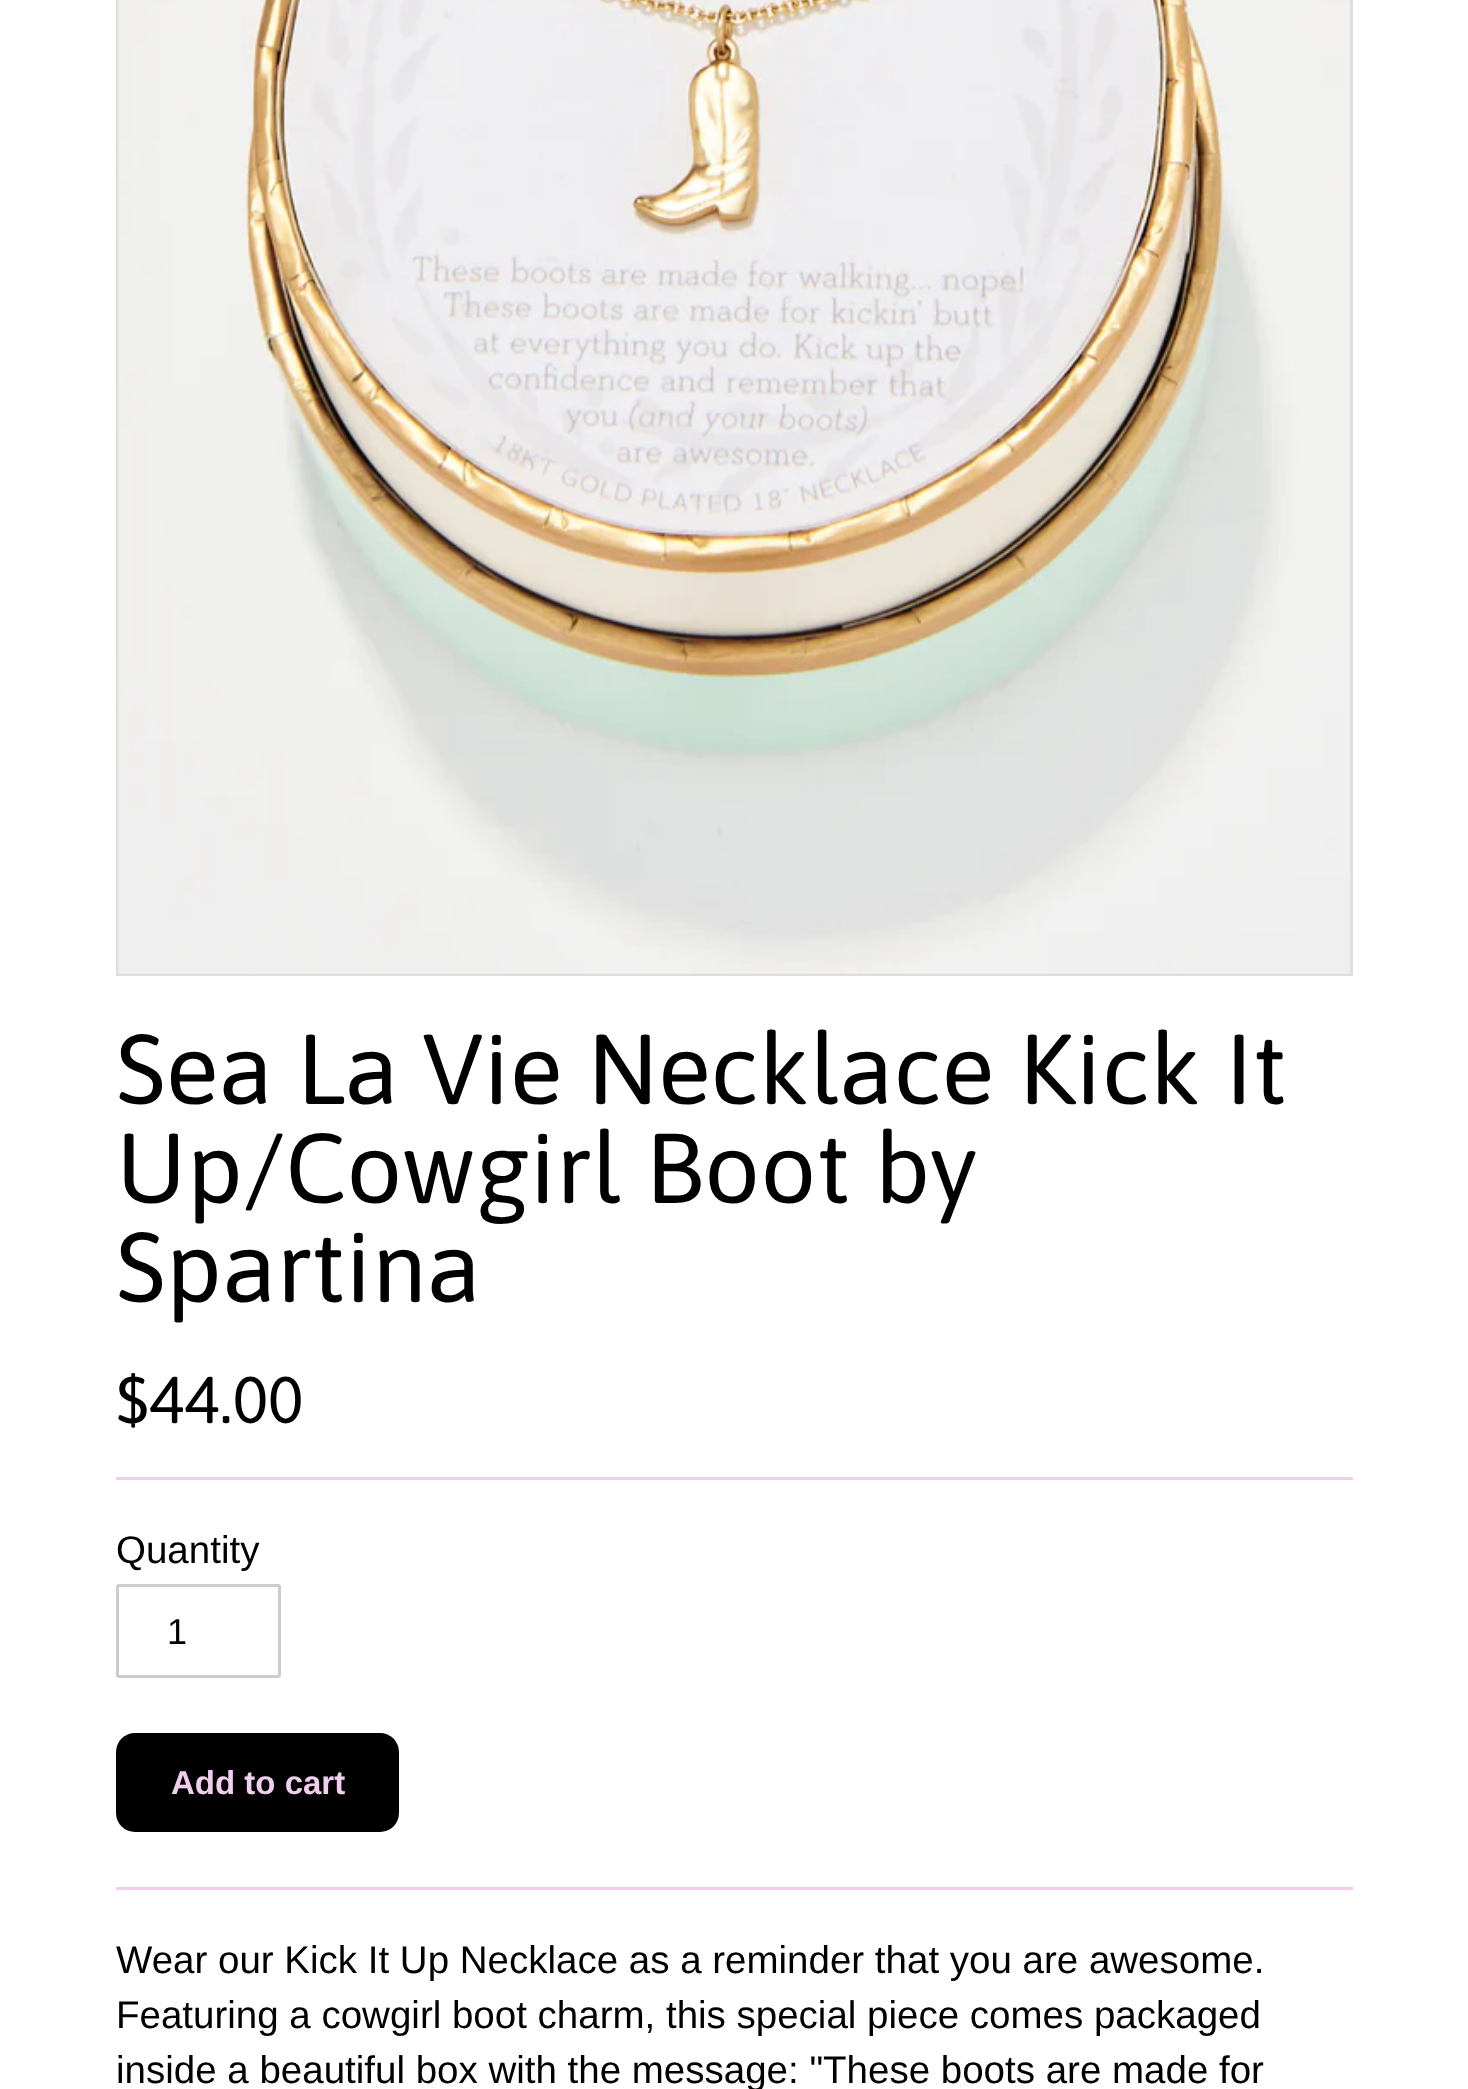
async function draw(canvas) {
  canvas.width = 1468;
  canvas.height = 2089;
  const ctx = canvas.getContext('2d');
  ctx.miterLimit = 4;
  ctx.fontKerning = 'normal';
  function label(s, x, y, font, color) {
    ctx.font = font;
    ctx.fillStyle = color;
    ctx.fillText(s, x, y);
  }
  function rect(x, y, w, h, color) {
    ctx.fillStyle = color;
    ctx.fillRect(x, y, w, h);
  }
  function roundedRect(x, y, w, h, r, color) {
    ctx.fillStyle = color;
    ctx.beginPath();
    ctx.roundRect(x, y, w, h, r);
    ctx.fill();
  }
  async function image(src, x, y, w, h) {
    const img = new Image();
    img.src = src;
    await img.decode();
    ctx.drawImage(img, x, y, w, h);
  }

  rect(0, 0, 1468, 2089, '#fff');
  ctx.strokeStyle = '#ddd';
  ctx.lineWidth = 3;
  ctx.strokeRect(117.5, -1.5, 1234, 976);
  await image('assets/img1.png', 118, 0, 1233, 974);
  label('Sea La Vie Necklace Kick It', 116, 1104, '99px Asap', '#000');
  label('Up/Cowgirl Boot by', 116, 1203, '99px Asap', '#000');
  label('Spartina', 116, 1302, '99px Asap', '#000');
  label('$44.00', 116, 1423, '66px Asap', '#000');
  rect(116, 1477, 1237, 3, '#f1ceee');
  rect(116, 1887, 1237, 3, '#f1ceee');
  label('Quantity', 116, 1563, '38.5px Liberation Sans', '#000');
  ctx.beginPath();
  ctx.roundRect(117.5, 1585.5, 162, 91, 1.5);
  ctx.strokeStyle = '#ccc';
  ctx.stroke();
  label('1', 167, 1644, '36px Liberation Sans', '#000');
  roundedRect(116, 1733, 283, 99, 19, '#000');
  label('Add to cart', 171, 1794, 'bold 33px Liberation Sans', '#f1ceee');
  label('Wear our Kick It Up Necklace as a reminder that you are awesome.', 116, 1973, '38.5px Liberation Sans', '#000');
  label('Featuring a cowgirl boot charm, this special piece comes packaged', 116, 2028, '38.5px Liberation Sans', '#000');
  label('inside a beautiful box with the message: "These boots are made for', 116, 2083, '38.5px Liberation Sans', '#000');
}

draw(document.querySelector('canvas'));
